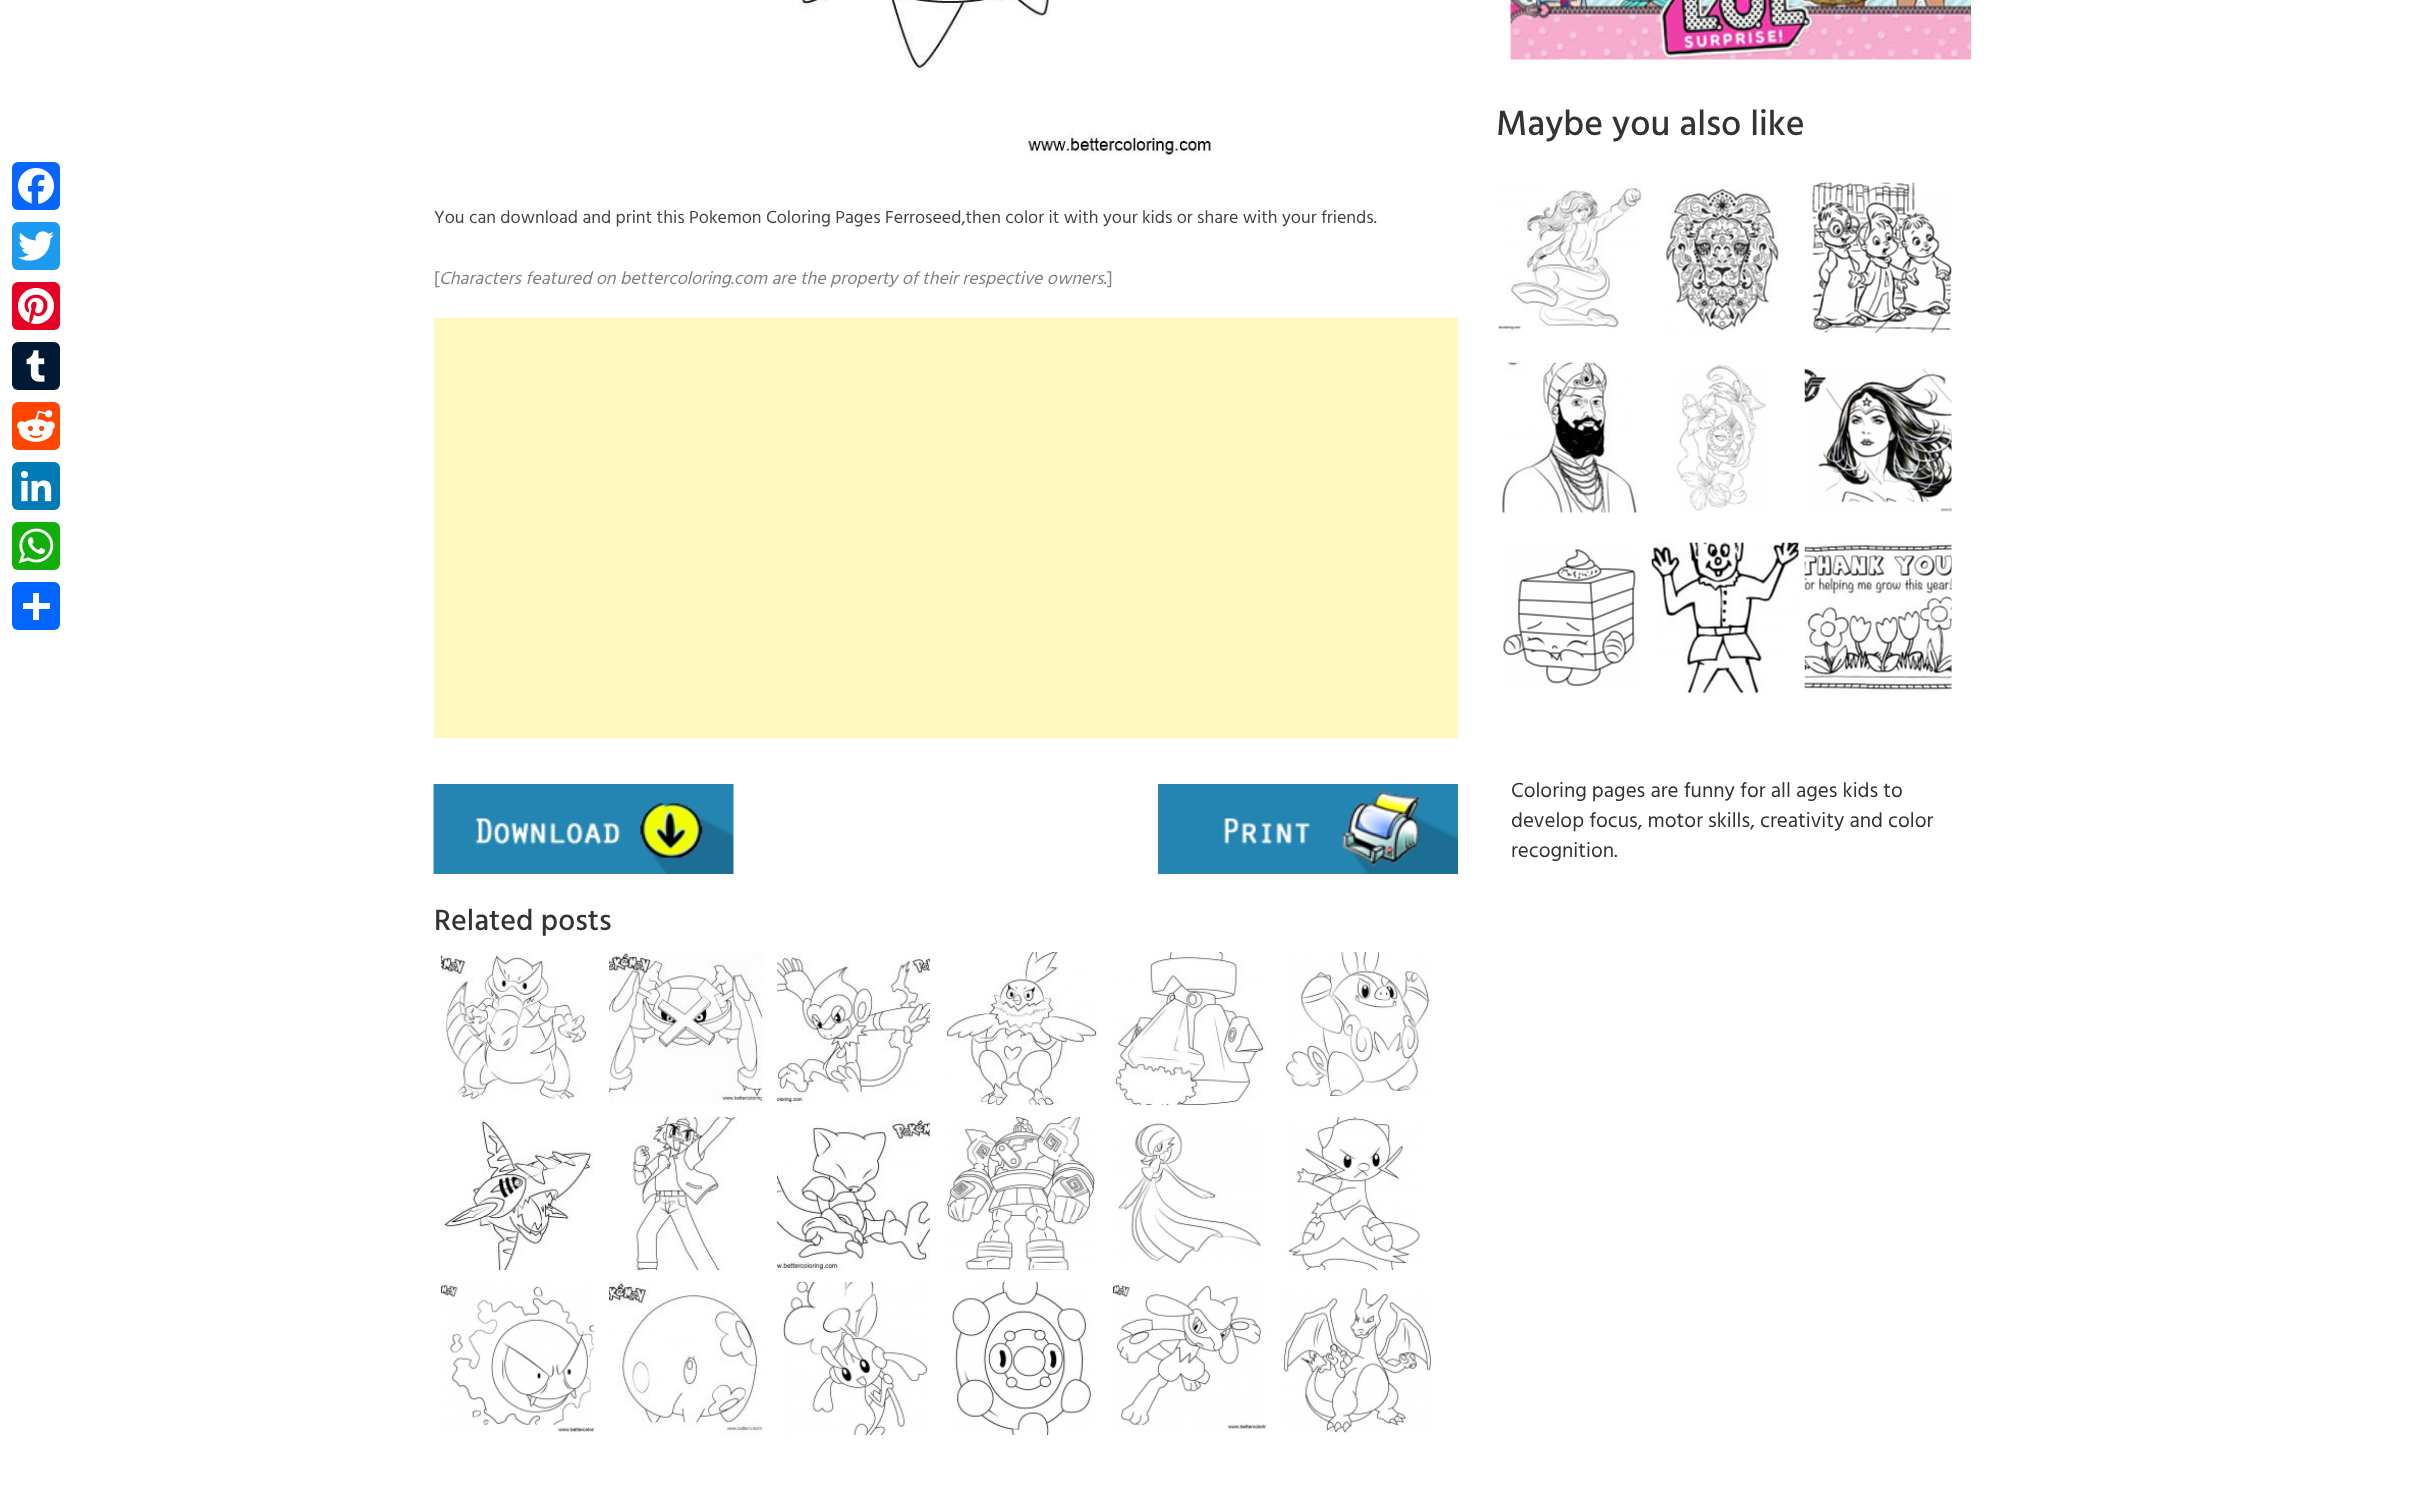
async function draw(canvas) {
  canvas.width = 2412;
  canvas.height = 1490;
  const ctx = canvas.getContext('2d');
  ctx.miterLimit = 4;
  ctx.fontKerning = 'normal';
  function label(s, x, y, font, color) {
    ctx.font = font;
    ctx.fillStyle = color;
    ctx.fillText(s, x, y);
  }
  function rect(x, y, w, h, color) {
    ctx.fillStyle = color;
    ctx.fillRect(x, y, w, h);
  }
  function roundedRect(x, y, w, h, r, color) {
    ctx.fillStyle = color;
    ctx.beginPath();
    ctx.roundRect(x, y, w, h, r);
    ctx.fill();
  }
  async function image(src, x, y, w, h) {
    const img = new Image();
    img.src = src;
    await img.decode();
    ctx.drawImage(img, x, y, w, h);
  }

  rect(0, 0, 2412, 1490, '#fff');
  roundedRect(12, 162, 48, 48, 6, '#0866ff');
  await image('assets/img1.png', 18, 168, 36, 36);
  roundedRect(12, 222, 48, 48, 6, '#1d9bf0');
  await image('assets/img2.png', 18, 231, 36, 30);
  roundedRect(12, 282, 48, 48, 6, '#e60023');
  await image('assets/img3.png', 18, 288, 36, 36);
  roundedRect(12, 342, 48, 48, 6, '#001935');
  await image('assets/img4.png', 26, 350, 19, 32);
  roundedRect(12, 402, 48, 48, 6, '#ff4500');
  await image('assets/img5.png', 17, 410, 38, 32);
  roundedRect(12, 462, 48, 48, 6, '#007bb5');
  await image('assets/img6.png', 20, 470, 32, 32);
  roundedRect(12, 522, 48, 48, 6, '#12af0a');
  await image('assets/img7.png', 18, 528, 36, 36);
  roundedRect(12, 582, 48, 48, 6, '#0166ff');
  rect(33, 593, 6, 27, '#fff');
  rect(23, 603, 27, 6, '#fff');
  await image('assets/img8.png', 799, 0, 412, 155);
  label('You can download and print this Pokemon Coloring Pages Ferroseed,then color it with your kids or share with your friends.', 434, 223, '18px Hind', '#444');
  label('[', 434, 284, '18px Hind', '#808080');
  label('Characters featured on bettercoloring.com are the property of their respective owners.', 439, 284, 'italic 18px Hind', '#808080');
  label(']', 1107, 284, '18px Hind', '#808080');
  rect(434, 318, 1024, 420, '#fff9c0');
  await image('assets/img9.png', 433, 784, 301, 90);
  await image('assets/img10.png', 1158, 784, 300, 90);
  label('Related posts', 434, 930, '500 30px Hind', '#333');
  await image('assets/img11.png', 441, 952, 147, 147);
  await image('assets/img12.png', 609, 952, 153, 153);
  await image('assets/img13.png', 777, 952, 153, 153);
  await image('assets/img14.png', 945, 952, 153, 153);
  await image('assets/img15.png', 1113, 952, 153, 153);
  await image('assets/img16.png', 1285, 952, 145, 145);
  await image('assets/img17.png', 441, 1118, 153, 152);
  await image('assets/img18.png', 633, 1117, 106, 153);
  await image('assets/img19.png', 777, 1117, 153, 153);
  await image('assets/img20.png', 946, 1117, 149, 153);
  await image('assets/img21.png', 1116, 1122, 146, 142);
  await image('assets/img22.png', 1287, 1117, 133, 153);
  await image('assets/img23.png', 441, 1284, 153, 150);
  await image('assets/img24.png', 609, 1282, 153, 153);
  await image('assets/img25.png', 783, 1282, 145, 153);
  await image('assets/img26.png', 951, 1282, 141, 153);
  await image('assets/img27.png', 1113, 1282, 153, 147);
  await image('assets/img28.png', 1282, 1287, 151, 146);
  await image('assets/img29.png', 1510, 0, 461, 60);
  label('Maybe you also like', 1496, 135, '500 36px Hind', '#333');
  await image('assets/img30.png', 1498, 183, 144, 150);
  await image('assets/img31.png', 1666, 185, 113, 148);
  await image('assets/img32.png', 1812, 182, 140, 151);
  await image('assets/img33.png', 1501, 362, 138, 151);
  await image('assets/img34.png', 1676, 364, 91, 147);
  await image('assets/img35.png', 1804, 368, 148, 144);
  await image('assets/img36.png', 1503, 549, 133, 138);
  await image('assets/img37.png', 1651, 542, 148, 151);
  await image('assets/img38.png', 1804, 543, 148, 150);
  label('Coloring pages are funny for all ages kids to', 1511, 797, '21px Hind', '#333');
  label('develop focus, motor skills, creativity and color', 1511, 827, '21px Hind', '#333');
  label('recognition.', 1511, 857, '21px Hind', '#333');
}

draw(document.querySelector('canvas'));
